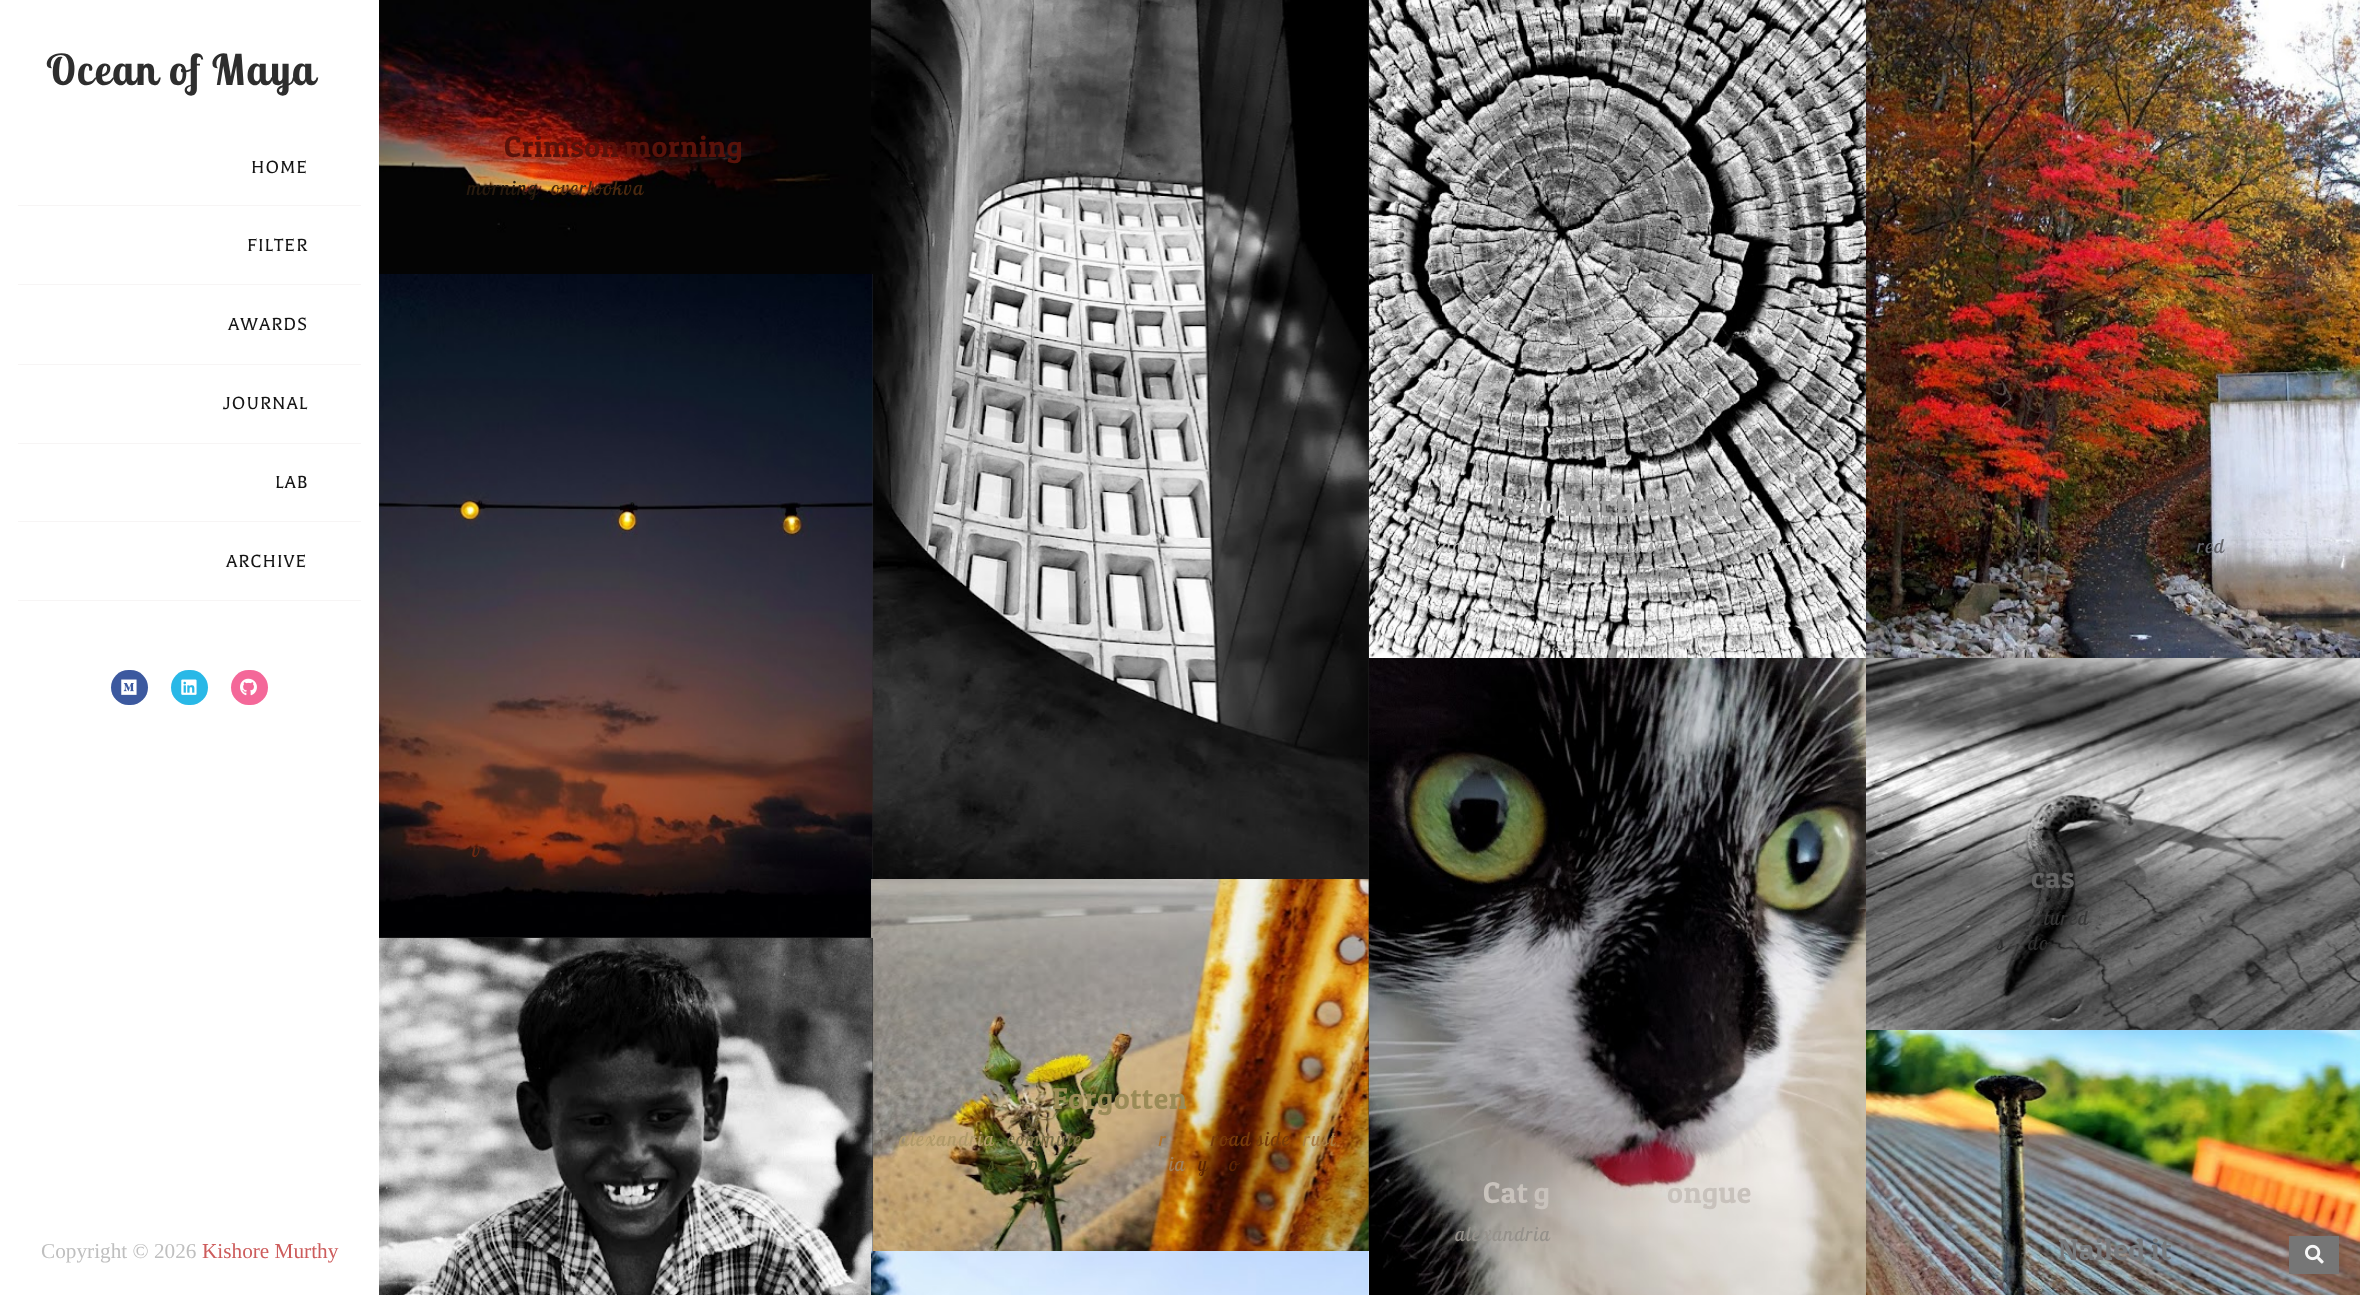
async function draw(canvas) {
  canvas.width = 2360;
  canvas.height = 1295;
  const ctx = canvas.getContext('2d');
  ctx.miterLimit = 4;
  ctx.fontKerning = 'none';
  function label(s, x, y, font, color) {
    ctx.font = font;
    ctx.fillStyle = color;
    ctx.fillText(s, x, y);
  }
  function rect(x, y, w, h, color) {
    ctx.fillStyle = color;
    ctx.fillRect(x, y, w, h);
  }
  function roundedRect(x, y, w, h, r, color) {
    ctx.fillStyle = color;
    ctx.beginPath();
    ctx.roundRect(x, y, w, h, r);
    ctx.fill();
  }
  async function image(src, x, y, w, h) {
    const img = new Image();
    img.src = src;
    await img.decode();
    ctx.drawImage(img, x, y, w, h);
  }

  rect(0, 0, 2360, 1295, '#fff');
  ctx.letterSpacing = '1.25px';
  label('Ocean of Maya', 46, 85, 'bold 42.5px Lobster Two', '#2e2e2e');
  rect(18, 205, 343, 1, '#f7f5f5');
  ctx.letterSpacing = '1px';
  label('HOME', 251, 173, '20px Balthazar', '#151515');
  rect(18, 284, 343, 1, '#f7f5f5');
  label('FILTER', 247, 251, '20px Balthazar', '#151515');
  rect(18, 364, 343, 1, '#f7f5f5');
  label('AWARDS', 228, 330, '20px Balthazar', '#151515');
  rect(18, 443, 343, 1, '#f7f5f5');
  label('JOURNAL', 223, 409, '20px Balthazar', '#151515');
  rect(18, 521, 343, 1, '#f7f5f5');
  label('LAB', 275, 488, '20px Balthazar', '#151515');
  rect(18, 600, 343, 1, '#f7f5f5');
  label('ARCHIVE', 226, 567, '20px Balthazar', '#151515');
  roundedRect(111, 670, 37, 35, 17.5, '#3c599f');
  await image('assets/img1.png', 121, 679, 16, 16);
  roundedRect(171, 670, 37, 35, 17.5, '#29b8e7');
  await image('assets/img2.png', 181, 679, 16, 16);
  roundedRect(231, 670, 37, 35, 17.5, '#f46899');
  await image('assets/img3.png', 240, 678, 17, 18);
  ctx.letterSpacing = '0px';
  label('Copyright © 2026', 41, 1258, '21.25px Liberation Serif', '#bfbfbf');
  label('Kishore Murthy', 202, 1258, '21.25px Liberation Serif', '#cd5c5c');
  await image('assets/img4.png', 379, 0, 492, 274);
  ctx.letterSpacing = '0.6px';
  ctx.wordSpacing = '-2px';
  label('Crimson morning', 504, 157, '30px Patua One', '#59120a');
  ctx.letterSpacing = '1.5px';
  ctx.wordSpacing = '0px';
  label('morning', 467, 195, 'italic 20px Lobster Two', '#291b0f');
  label('overlookva', 551, 195, 'italic 20px Lobster Two', '#4b290f');
  rect(1368, 0, 1, 1251, '#2c2c2c');
  await image('assets/img5.png', 871, 0, 498, 879);
  await image('assets/img6.png', 1369, 0, 497, 658);
  ctx.letterSpacing = '0.6px';
  ctx.wordSpacing = '-2px';
  label('Dead but beautiful', 1491, 516, '30px Patua One', '#a2a2a2');
  ctx.letterSpacing = '1.5px';
  ctx.wordSpacing = '0px';
  label('alexandria', 1404, 553, 'italic 20px Lobster Two', '#b5b5b5');
  label(',', 1500, 553, 'italic 20px Lobster Two', '#8e8e8e');
  label('commute', 1512, 553, 'italic 20px Lobster Two', '#a2a2a2');
  label(',', 1587, 553, 'italic 20px Lobster Two', '#818181');
  ctx.wordSpacing = '-1px';
  label('cross section', 1599, 553, 'italic 20px Lobster Two', '#a2a2a2');
  ctx.wordSpacing = '0px';
  label('monochrome', 1718, 553, 'italic 20px Lobster Two', '#a9a9a9');
  label('tree', 1541, 578, 'italic 20px Lobster Two', '#818181');
  label(',', 1573, 578, 'italic 20px Lobster Two', '#656565');
  label('usa', 1585, 578, 'italic 20px Lobster Two', '#a9a9a9');
  label('virginia', 1627, 578, 'italic 20px Lobster Two', '#979797');
  await image('assets/img7.png', 1866, 0, 494, 658);
  label('red', 2197, 553, 'italic 20px Lobster Two', '#65666c');
  rect(379, 274, 494, 664, '#2c2c2c');
  await image('assets/img8.png', 379, 274, 494, 664);
  label('v', 472, 857, 'italic 20px Lobster Two', '#6d2712');
  await image('assets/img9.png', 1369, 658, 497, 637);
  ctx.letterSpacing = '0.6px';
  ctx.wordSpacing = '-2px';
  label('Cat g', 1483, 1203, '30px Patua One', '#c8c2bc');
  label('ongue', 1667, 1203, '30px Patua One', '#c8c2bc');
  ctx.letterSpacing = '1.5px';
  ctx.wordSpacing = '0px';
  label('alexandria', 1455, 1241, 'italic 20px Lobster Two', '#95918b');
  await image('assets/img10.png', 1866, 658, 494, 372);
  ctx.letterSpacing = '0.6px';
  ctx.wordSpacing = '-2px';
  label('cas', 2031, 888, '30px Patua One', '#656565');
  ctx.letterSpacing = '1.5px';
  ctx.wordSpacing = '0px';
  label('tured', 2044, 925, 'italic 20px Lobster Two', '#373737');
  label('s', 1997, 950, 'italic 20px Lobster Two', '#2e2e2e');
  label('do', 2028, 950, 'italic 20px Lobster Two', '#2e2e2e');
  await image('assets/img12.png', 871, 879, 498, 372);
  rect(872, 938, 1, 313, '#2c2c2c');
  await image('assets/img11.png', 379, 938, 494, 357);
  ctx.letterSpacing = '0.6px';
  label('Forgotten', 1052, 1109, '30px Patua One', '#9a8b57');
  ctx.letterSpacing = '1.5px';
  label('alexandria', 899, 1146, 'italic 20px Lobster Two', '#af9968');
  label('commute', 1007, 1146, 'italic 20px Lobster Two', '#7c7149');
  label('r', 1159, 1146, 'italic 20px Lobster Two', '#af742c');
  ctx.wordSpacing = '-1px';
  label('road side', 1211, 1146, 'italic 20px Lobster Two', '#783c0a');
  ctx.wordSpacing = '0px';
  label('rust', 1303, 1146, 'italic 20px Lobster Two', '#aa7e43');
  ctx.wordSpacing = '-1px';
  label('s', 988, 1171, 'italic 20px Lobster Two', '#464c22');
  label('p', 1029, 1171, 'italic 20px Lobster Two', '#464c22');
  ctx.wordSpacing = '0px';
  label('ia', 1169, 1171, 'italic 20px Lobster Two', '#a2825f');
  label('y', 1198, 1171, 'italic 20px Lobster Two', '#5e2503');
  label('o', 1229, 1171, 'italic 20px Lobster Two', '#5e2503');
  await image('assets/img13.png', 871, 1251, 498, 44);
  await image('assets/img14.png', 1866, 1030, 494, 265);
  ctx.letterSpacing = '0.6px';
  ctx.wordSpacing = '-2px';
  label('Nailed it', 2058, 1260, '30px Patua One', '#77797c');
  rect(2289, 1236, 50, 38, '#767676');
  await image('assets/img15.png', 2305, 1244, 19, 20);
}

draw(document.querySelector('canvas'));
